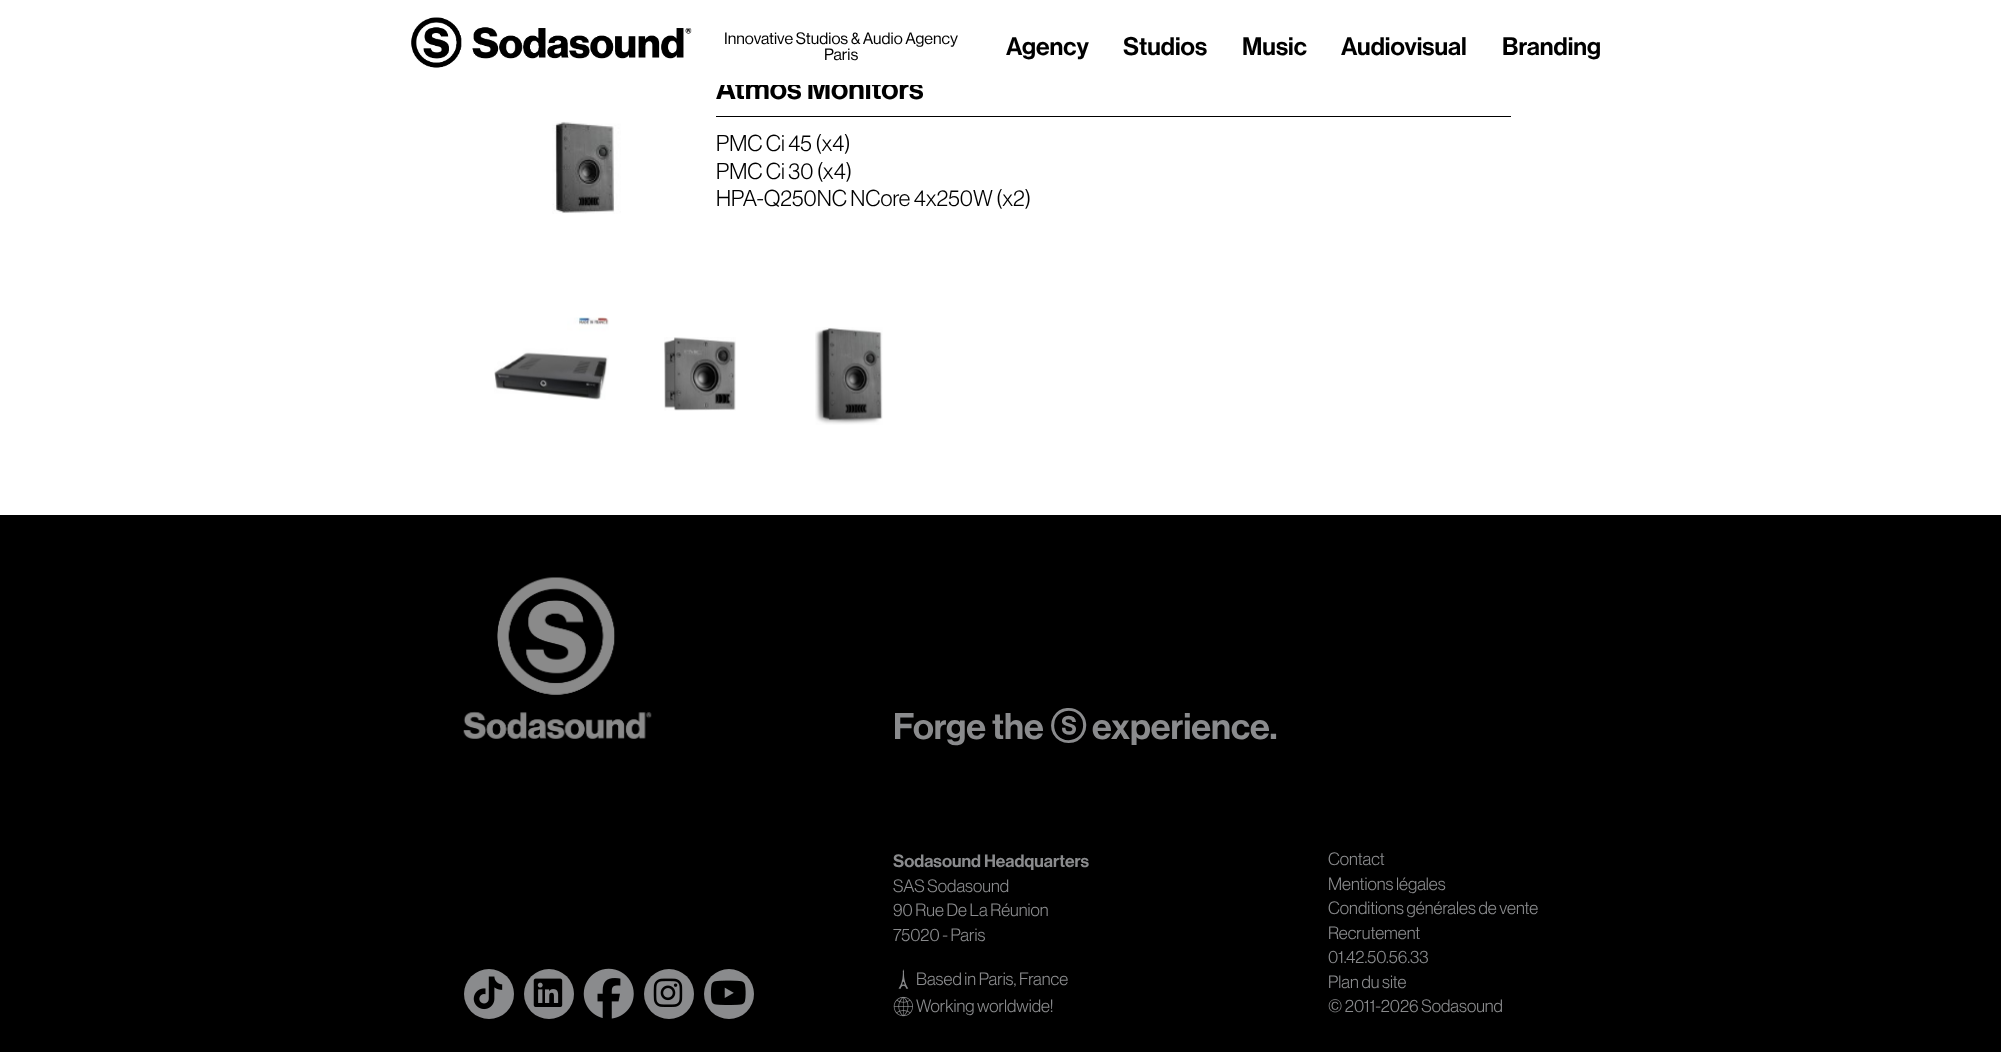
async function draw(canvas) {
  canvas.width = 2001;
  canvas.height = 1052;
  const ctx = canvas.getContext('2d');
  ctx.miterLimit = 4;
  ctx.fontKerning = 'normal';
  function label(s, x, y, font, color) {
    ctx.font = font;
    ctx.fillStyle = color;
    ctx.fillText(s, x, y);
  }
  function rect(x, y, w, h, color) {
    ctx.fillStyle = color;
    ctx.fillRect(x, y, w, h);
  }
  async function image(src, x, y, w, h) {
    const img = new Image();
    img.src = src;
    await img.decode();
    ctx.drawImage(img, x, y, w, h);
  }

  rect(0, 0, 2001, 1052, '#000');
  rect(0, 85, 2001, 430, '#fff');
  label('Atmos Monitors', 716, 99, '500 30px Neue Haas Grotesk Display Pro', '#000');
  rect(0, 0, 2001, 85, '#fff');
  await image('assets/img1.png', 411, 17, 281, 51);
  label('Innovative Studios & Audio Agency', 724, 44, '16.25px "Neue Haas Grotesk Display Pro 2"', '#000');
  label('Paris', 824, 60, '16.25px "Neue Haas Grotesk Display Pro 2"', '#000');
  label('Agency', 1006, 55, '500 25px Neue Haas Grotesk Display Pro', '#000');
  label('Studios', 1123, 55, '500 25px Neue Haas Grotesk Display Pro', '#000');
  label('Music', 1242, 55, '500 25px Neue Haas Grotesk Display Pro', '#000');
  label('Audiovisual', 1341, 55, '500 25px Neue Haas Grotesk Display Pro', '#000');
  label('Branding', 1502, 55, '500 25px Neue Haas Grotesk Display Pro', '#000');
  await image('assets/img2.png', 552, 121, 69, 93);
  rect(716, 116, 795, 1, '#000');
  label('PMC Ci 45 (x4)', 716, 151, '22.5px Neue Haas Grotesk Display Pro', '#000');
  label('PMC Ci 30 (x4)', 716, 179, '22.5px Neue Haas Grotesk Display Pro', '#000');
  label('HPA-Q250NC NCore 4x250W (x2)', 716, 206, '22.5px Neue Haas Grotesk Display Pro', '#000');
  await image('assets/img3.png', 494, 317, 115, 83);
  await image('assets/img4.png', 664, 337, 72, 74);
  await image('assets/img5.png', 815, 327, 68, 98);
  await image('assets/img6.png', 463, 577, 189, 162);
  label('Forge the', 893, 739, '500 36.25px Neue Haas Grotesk Display Pro', '#8a8b8d');
  label('ⓢ', 1050, 739, 'bold 36.25px WenQuanYi Zen Hei', '#8a8b8d');
  label('experience.', 1092, 739, '500 36.25px Neue Haas Grotesk Display Pro', '#8a8b8d');
  ctx.beginPath();
  ctx.arc(489, 994, 25, 0, 2 * Math.PI);
  ctx.fill();
  await image('assets/img7.png', 473, 976, 30, 34);
  ctx.beginPath();
  ctx.arc(549, 994, 25, 0, 2 * Math.PI);
  ctx.fill();
  await image('assets/img8.png', 533, 978, 30, 29);
  await image('assets/img9.png', 583, 968, 51, 51);
  ctx.beginPath();
  ctx.arc(669, 994, 25, 0, 2 * Math.PI);
  ctx.fill();
  await image('assets/img10.png', 653, 978, 30, 29);
  ctx.beginPath();
  ctx.arc(729, 994, 25, 0, 2 * Math.PI);
  ctx.fill();
  await image('assets/img11.png', 710, 980, 36, 25);
  label('Sodasound Headquarters', 893, 867, '500 17.5px Neue Haas Grotesk Display Pro', '#8a8b8d');
  label('SAS Sodasound', 893, 892, '17.5px Neue Haas Grotesk Display Pro', '#8a8b8d');
  label('90 Rue De La Réunion', 893, 916, '17.5px Neue Haas Grotesk Display Pro', '#8a8b8d');
  label('75020 - Paris', 893, 941, '17.5px Neue Haas Grotesk Display Pro', '#8a8b8d');
  await image('assets/img12.png', 898, 969, 11, 20);
  label('Based in Paris, France', 916, 985, '17.5px Neue Haas Grotesk Display Pro', '#8a8b8d');
  await image('assets/img13.png', 893, 996, 20, 21);
  label('Working worldwide!', 916, 1012, '17.5px Neue Haas Grotesk Display Pro', '#8a8b8d');
  label('Contact', 1328, 865, '17.5px Neue Haas Grotesk Display Pro', '#8a8b8d');
  label('Mentions légales', 1328, 890, '17.5px Neue Haas Grotesk Display Pro', '#8a8b8d');
  label('Conditions générales de vente', 1328, 914, '17.5px Neue Haas Grotesk Display Pro', '#8a8b8d');
  label('Recrutement', 1328, 939, '17.5px Neue Haas Grotesk Display Pro', '#8a8b8d');
  label('01.42.50.56.33', 1328, 963, '17.5px Neue Haas Grotesk Display Pro', '#8a8b8d');
  label('Plan du site', 1328, 988, '17.5px Neue Haas Grotesk Display Pro', '#8a8b8d');
  label('© 2011-2026 Sodasound', 1328, 1012, '17.5px Neue Haas Grotesk Display Pro', '#8a8b8d');
}

draw(document.querySelector('canvas'));
